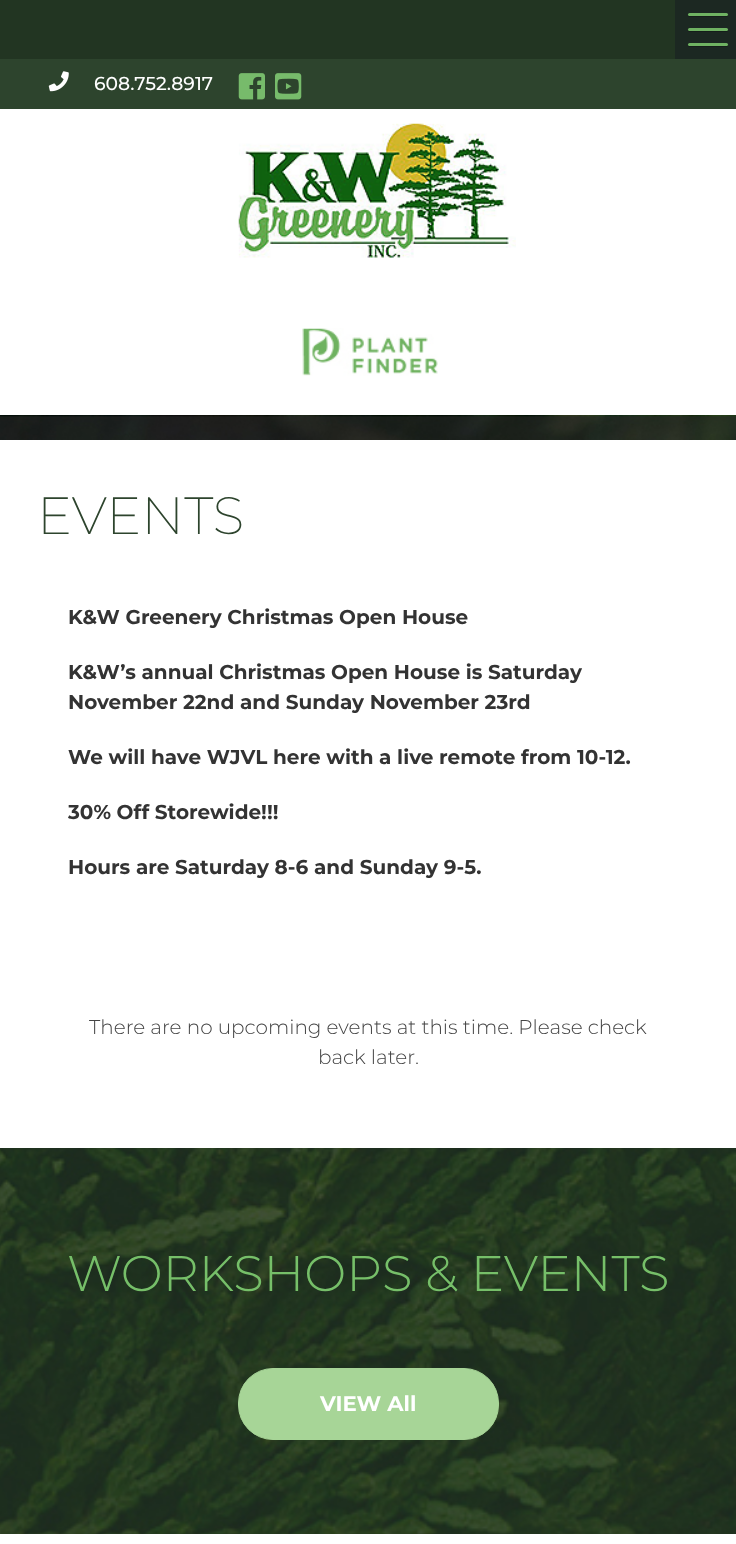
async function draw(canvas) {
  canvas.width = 736;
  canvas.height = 1544;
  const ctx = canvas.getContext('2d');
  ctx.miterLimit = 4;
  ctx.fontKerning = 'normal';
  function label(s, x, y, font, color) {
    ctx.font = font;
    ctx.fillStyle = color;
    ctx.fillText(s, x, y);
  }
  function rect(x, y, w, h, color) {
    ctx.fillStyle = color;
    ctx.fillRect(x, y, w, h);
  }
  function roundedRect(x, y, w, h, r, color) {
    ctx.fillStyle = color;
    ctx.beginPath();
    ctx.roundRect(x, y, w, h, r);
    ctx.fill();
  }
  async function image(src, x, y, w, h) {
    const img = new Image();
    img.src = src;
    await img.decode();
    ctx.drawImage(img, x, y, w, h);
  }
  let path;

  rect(0, 0, 736, 1544, '#fff');
  rect(0, 0, 675, 59, '#223522');
  rect(675, 0, 61, 59, '#1c2822');
  ctx.fillStyle = '#151e1a';
  path = new Path2D('M688 15C688 16 688 17 690 17H727C728 16 728 15 727 14L726 15Z');
  ctx.fill(path);
  roundedRect(688, 13, 40, 3, 1.5, '#6fb262');
  ctx.fillStyle = '#151e1a';
  path = new Path2D('M688 30C688 31 688 32 690 32H727C728 31 728 30 727 29L726 30Z');
  ctx.fill(path);
  roundedRect(688, 28, 40, 3, 1.5, '#6fb262');
  ctx.fillStyle = '#151e1a';
  path = new Path2D('M688 45C688 46 688 47 690 47H727C728 46 728 45 727 44L726 45Z');
  ctx.fill(path);
  roundedRect(688, 43, 40, 3, 1.5, '#6fb262');
  rect(0, 59, 736, 50, '#2d442d');
  await image('assets/img1.png', 48, 71, 21, 21);
  label('608.752.8917', 94, 90, '500 18.75px Montserrat', '#fff');
  await image('assets/img2.png', 238, 73, 27, 27);
  await image('assets/img3.png', 275, 73, 27, 27);
  await image('assets/img4.png', 238, 123, 278, 135);
  await image('assets/img5.png', 302, 328, 136, 48);
  await image('assets/img6.png', 0, 415, 736, 25);
  label('EVENTS', 37, 534, '200 52.5px Montserrat', '#2d442d');
  label('K&W Greenery Christmas Open House', 68, 624, 'bold 20px Montserrat', '#333');
  label('K&W’s annual Christmas Open House is Saturday', 68, 679, 'bold 20px Montserrat', '#333');
  label('November 22nd and Sunday November 23rd', 68, 709, 'bold 20px Montserrat', '#333');
  label('We will have WJVL here with a live remote from 10-12.', 68, 764, 'bold 20px Montserrat', '#333');
  label('30% Off Storewide!!!', 68, 819, 'bold 20px Montserrat', '#333');
  label('Hours are Saturday 8-6 and Sunday 9-5.', 68, 874, 'bold 20px Montserrat', '#333');
  label('There are no upcoming events at this time. Please check', 89, 1034, '300 20px Montserrat', '#444');
  label('back later.', 318, 1064, '300 20px Montserrat', '#444');
  await image('assets/img7.png', 0, 1148, 736, 386);
  label('WORKSHOPS & EVENTS', 67, 1291, '300 50px Montserrat', '#76bf69');
  ctx.fillStyle = '#a7d597';
  ctx.beginPath();
  ctx.roundRect(238.5, 1368.5, 260, 71, 34.5);
  ctx.fill();
  ctx.strokeStyle = '#a7d597';
  ctx.stroke();
  label('VIEW All', 320, 1411, 'bold 21.25px Montserrat', '#fff');
}

draw(document.querySelector('canvas'));
